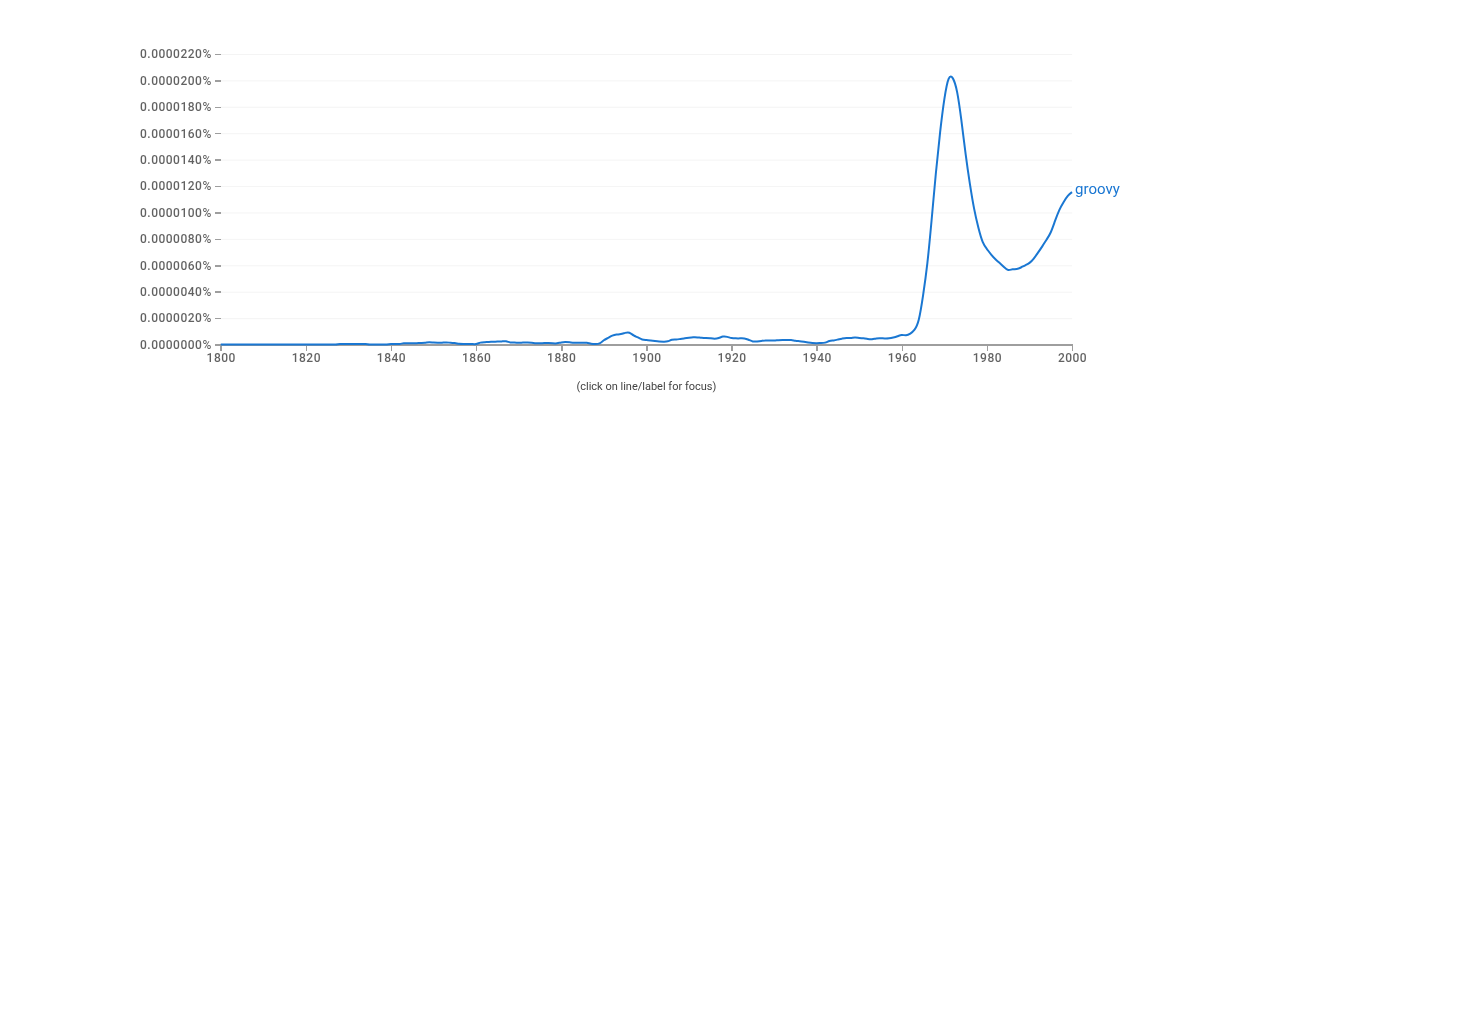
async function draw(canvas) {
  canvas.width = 1470;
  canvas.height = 1020;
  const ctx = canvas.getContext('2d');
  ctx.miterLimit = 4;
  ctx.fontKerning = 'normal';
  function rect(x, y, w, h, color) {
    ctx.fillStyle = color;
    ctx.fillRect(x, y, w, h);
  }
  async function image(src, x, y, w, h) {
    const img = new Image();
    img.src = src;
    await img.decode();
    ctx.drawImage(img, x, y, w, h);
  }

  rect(0, 0, 1470, 1020, '#fff');
  await image('assets/img1.png', 140, 49, 980, 344);
}

draw(document.querySelector('canvas'));
